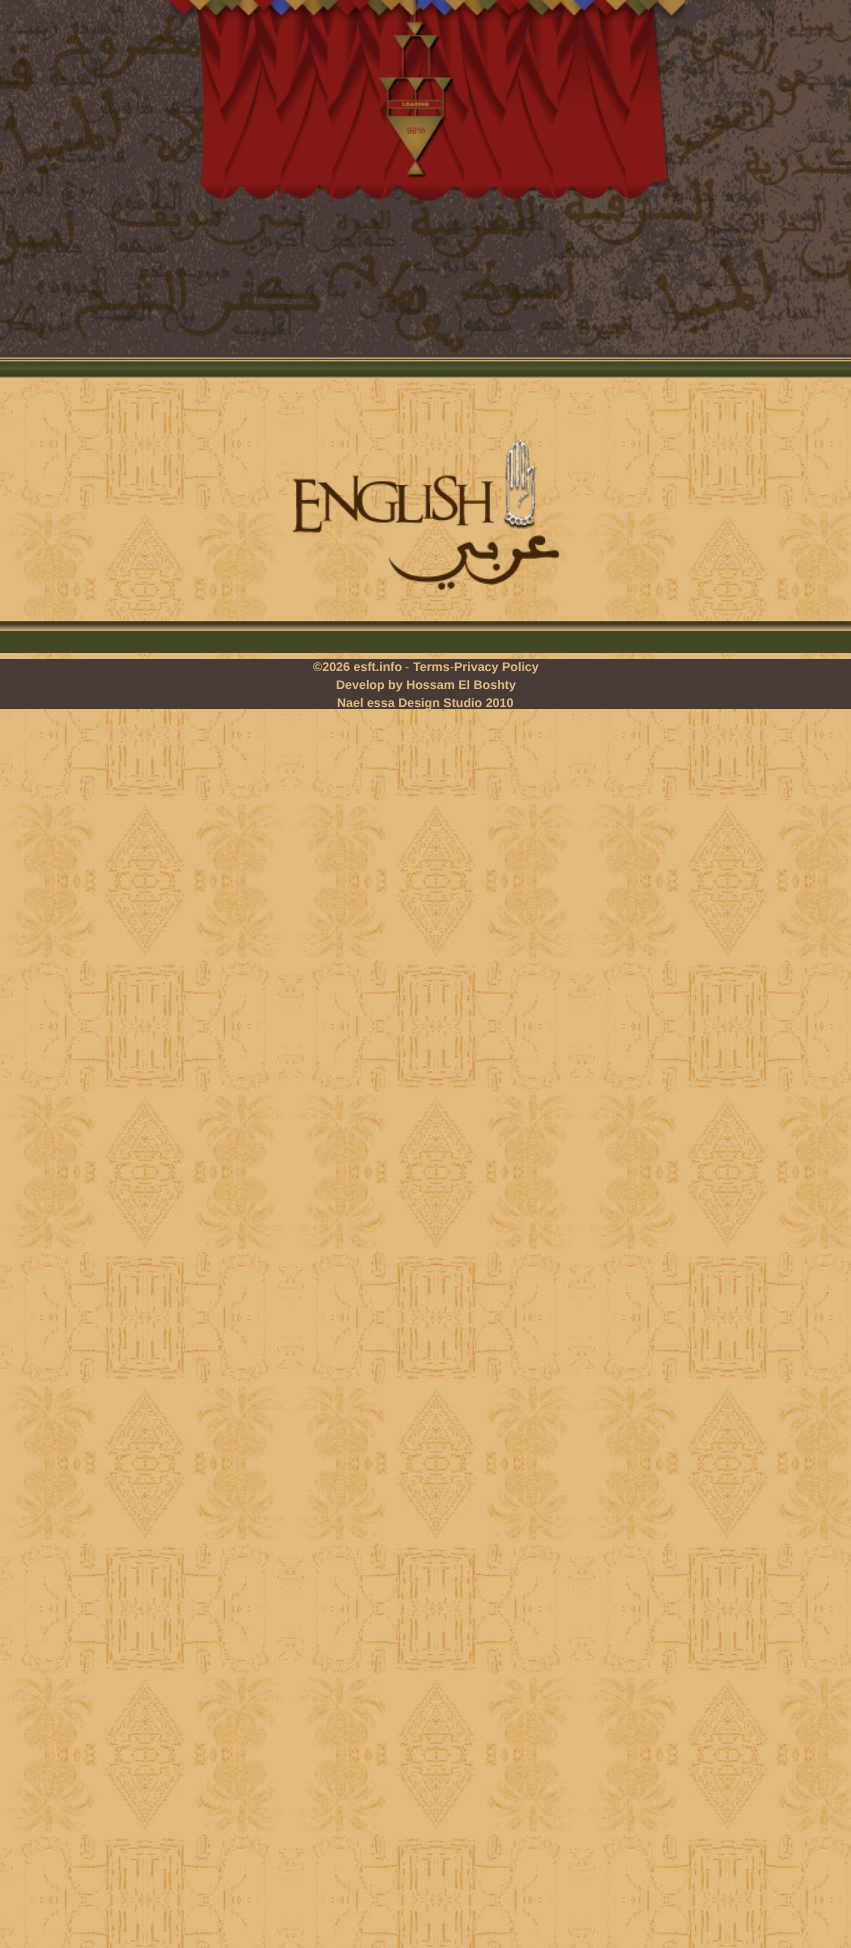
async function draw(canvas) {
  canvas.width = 851;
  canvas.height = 1948;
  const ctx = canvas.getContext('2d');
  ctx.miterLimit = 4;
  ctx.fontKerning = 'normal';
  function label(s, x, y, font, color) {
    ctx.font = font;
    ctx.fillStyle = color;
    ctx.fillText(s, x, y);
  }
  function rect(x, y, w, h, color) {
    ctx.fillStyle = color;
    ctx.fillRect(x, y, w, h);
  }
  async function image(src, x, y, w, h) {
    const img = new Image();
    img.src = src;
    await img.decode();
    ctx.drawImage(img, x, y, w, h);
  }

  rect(0, 0, 851, 1948, '#fff');
  await image('assets/img1.png', 0, 361, 851, 1587);
  await image('assets/img2.png', 0, 0, 851, 362);
  await image('assets/img3.png', 167, 0, 519, 203);
  await image('assets/img4.png', 0, 361, 851, 17);
  await image('assets/img5.png', 292, 440, 245, 93);
  await image('assets/img6.png', 388, 534, 172, 57);
  await image('assets/img7.png', 0, 621, 851, 10);
  rect(0, 631, 851, 22, '#444826');
  rect(0, 659, 851, 50, '#473b38');
  label('©2026 esft.info', 313, 671, 'bold 12.5px Liberation Sans', '#e2ba7d');
  label('-', 405, 671, '12.5px Liberation Sans', '#e2ba7d');
  label('Terms', 413, 671, 'bold 12.5px Liberation Sans', '#e2ba7d');
  label('-', 450, 671, '12.5px Liberation Sans', '#e2ba7d');
  label('Privacy Policy', 454, 671, 'bold 12.5px Liberation Sans', '#e2ba7d');
  label('Develop by Hossam El Boshty', 336, 689, 'bold 12.5px Liberation Sans', '#e2ba7d');
  label('Nael essa Design Studio 2010', 337, 707, 'bold 12.5px Liberation Sans', '#e2ba7d');
}

draw(document.querySelector('canvas'));
